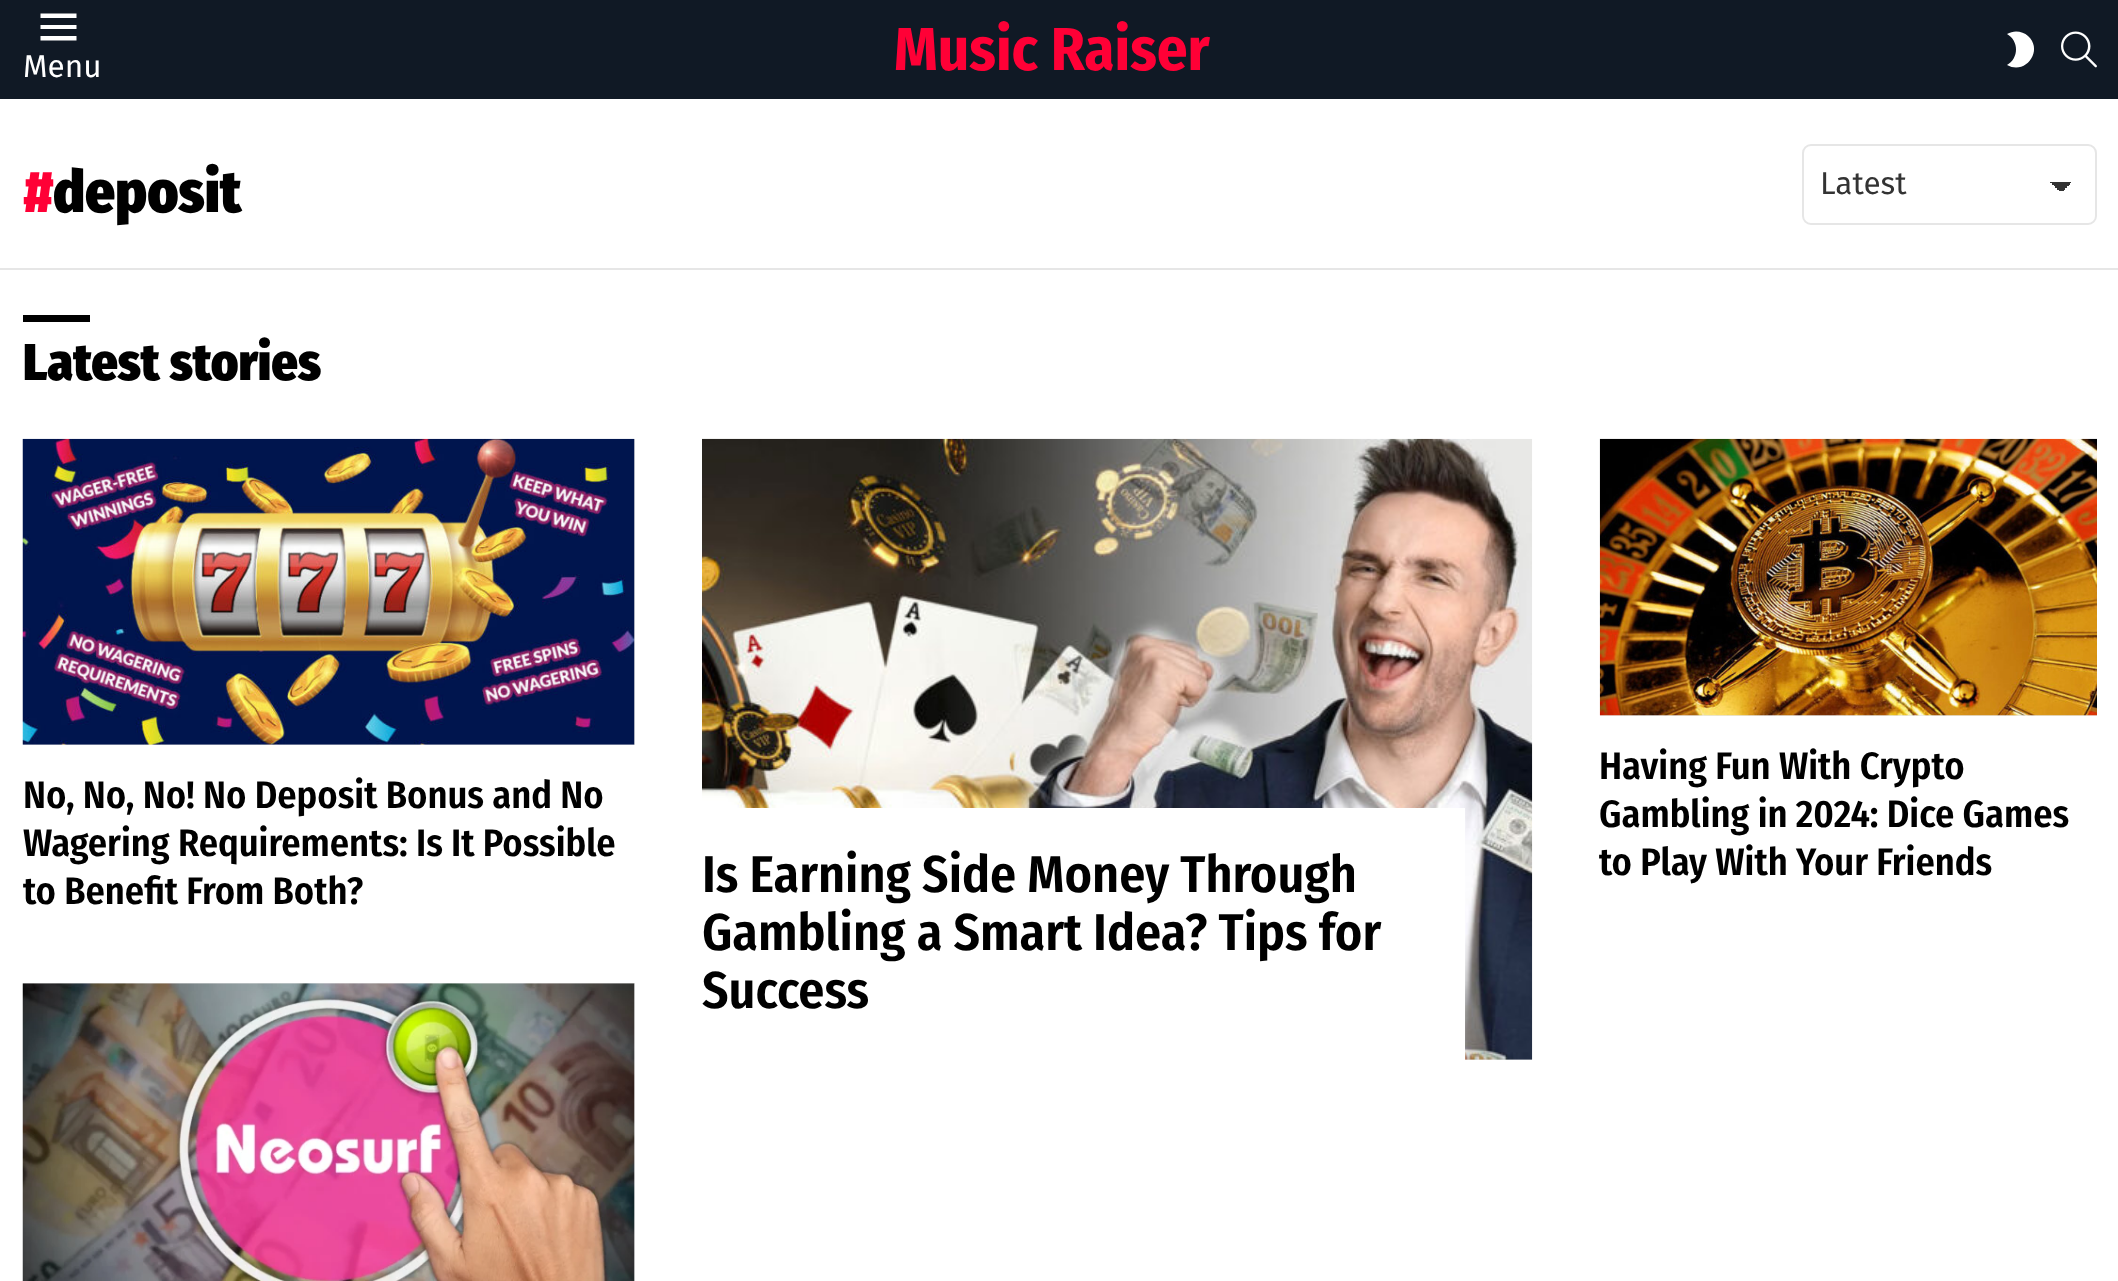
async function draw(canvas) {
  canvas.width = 2118;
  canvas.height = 1281;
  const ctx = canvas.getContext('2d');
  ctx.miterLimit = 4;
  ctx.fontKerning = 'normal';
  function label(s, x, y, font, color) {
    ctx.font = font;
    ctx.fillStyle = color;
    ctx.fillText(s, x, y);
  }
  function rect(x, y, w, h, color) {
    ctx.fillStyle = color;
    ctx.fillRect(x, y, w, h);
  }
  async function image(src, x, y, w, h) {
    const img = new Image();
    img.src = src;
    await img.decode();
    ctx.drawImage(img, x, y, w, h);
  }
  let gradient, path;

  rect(0, 0, 2118, 1281, '#fff');
  rect(0, 0, 2118, 99, '#101925');
  ctx.fillStyle = '#fff';
  path = new Path2D('M40.5 13.5H76.5V18H40.5ZM40.5 25H76.5V29H40.5ZM40.5 36H76.5V40.5H40.5Z');
  ctx.fill(path);
  label('Menu', 23, 77, '31.5px Fira Sans', '#fff');
  label('Music Raiser', 894, 70, 'bold 60.75px Fira Sans Condensed', '#ff0036');
  ctx.fillStyle = '#fff';
  path = new Path2D('M2016 31.5C2013 31.5 2010 32.5 2007 34C2019 41 2019 58 2007 65C2025.5 75.5 2044 50.5 2028 36C2025 33 2020.5 31.5 2016 31.5Z');
  ctx.fill(path);
  await image('assets/img1.png', 2061, 31, 36, 37);
  label('#', 23, 212, '900 58.5px Fira Sans Condensed', '#ff0036');
  label('deposit', 53, 212, '900 58.5px Fira Sans Condensed', '#000');
  gradient = ctx.createLinearGradient(2062, 182, 2072, 192);
  gradient.addColorStop(0.5, '#333');
  gradient.addColorStop(0.5, '#fff');
  ctx.fillStyle = gradient;
  ctx.fillRect(2061, 182, 10, 9);
  gradient = ctx.createLinearGradient(2050, 192, 2060, 182);
  gradient.addColorStop(0.5, '#fff');
  gradient.addColorStop(0.5, '#333');
  ctx.fillStyle = gradient;
  ctx.fillRect(2050, 182, 11, 9);
  ctx.beginPath();
  ctx.roundRect(1803, 145, 293, 79, 8);
  ctx.strokeStyle = '#e6e6e6';
  ctx.lineWidth = 2;
  ctx.stroke();
  label('Latest', 1820, 194, '31.5px Fira Sans', '#333');
  rect(0, 268, 2118, 2, '#e6e6e6');
  rect(23, 315, 67, 7, '#000');
  label('Latest stories', 23, 380, '900 51.75px Fira Sans Condensed', '#000');
  rect(23, 439, 612, 306, '#e6e6e6');
  await image('assets/img2.png', 22, 438, 613, 307);
  label('No, No, No! No Deposit Bonus and No', 23, 808, '600 38.25px Fira Sans Condensed', '#000');
  label('Wagering Requirements: Is It Possible', 23, 856, '600 38.25px Fira Sans Condensed', '#000');
  label('to Benefit From Both?', 23, 904, '600 38.25px Fira Sans Condensed', '#000');
  rect(23, 983, 612, 298, '#e6e6e6');
  await image('assets/img3.png', 22, 983, 613, 298);
  rect(1465, 1059, 67, 1, '#e6e6e6');
  await image('assets/img4.png', 702, 438, 831, 622);
  rect(702, 808, 763, 252, '#fff');
  label('Is Earning Side Money Through', 702, 892, '600 51.75px Fira Sans Condensed', '#000');
  label('Gambling a Smart Idea? Tips for', 702, 950, '600 51.75px Fira Sans Condensed', '#000');
  label('Success', 702, 1008, '600 51.75px Fira Sans Condensed', '#000');
  rect(1600, 715, 497, 1, '#e6e6e6');
  await image('assets/img5.png', 1599, 438, 498, 278);
  label('Having Fun With Crypto', 1599, 779, '600 38.25px Fira Sans Condensed', '#000');
  label('Gambling in 2024: Dice Games', 1599, 827, '600 38.25px Fira Sans Condensed', '#000');
  label('to Play With Your Friends', 1599, 875, '600 38.25px Fira Sans Condensed', '#000');
}

draw(document.querySelector('canvas'));
